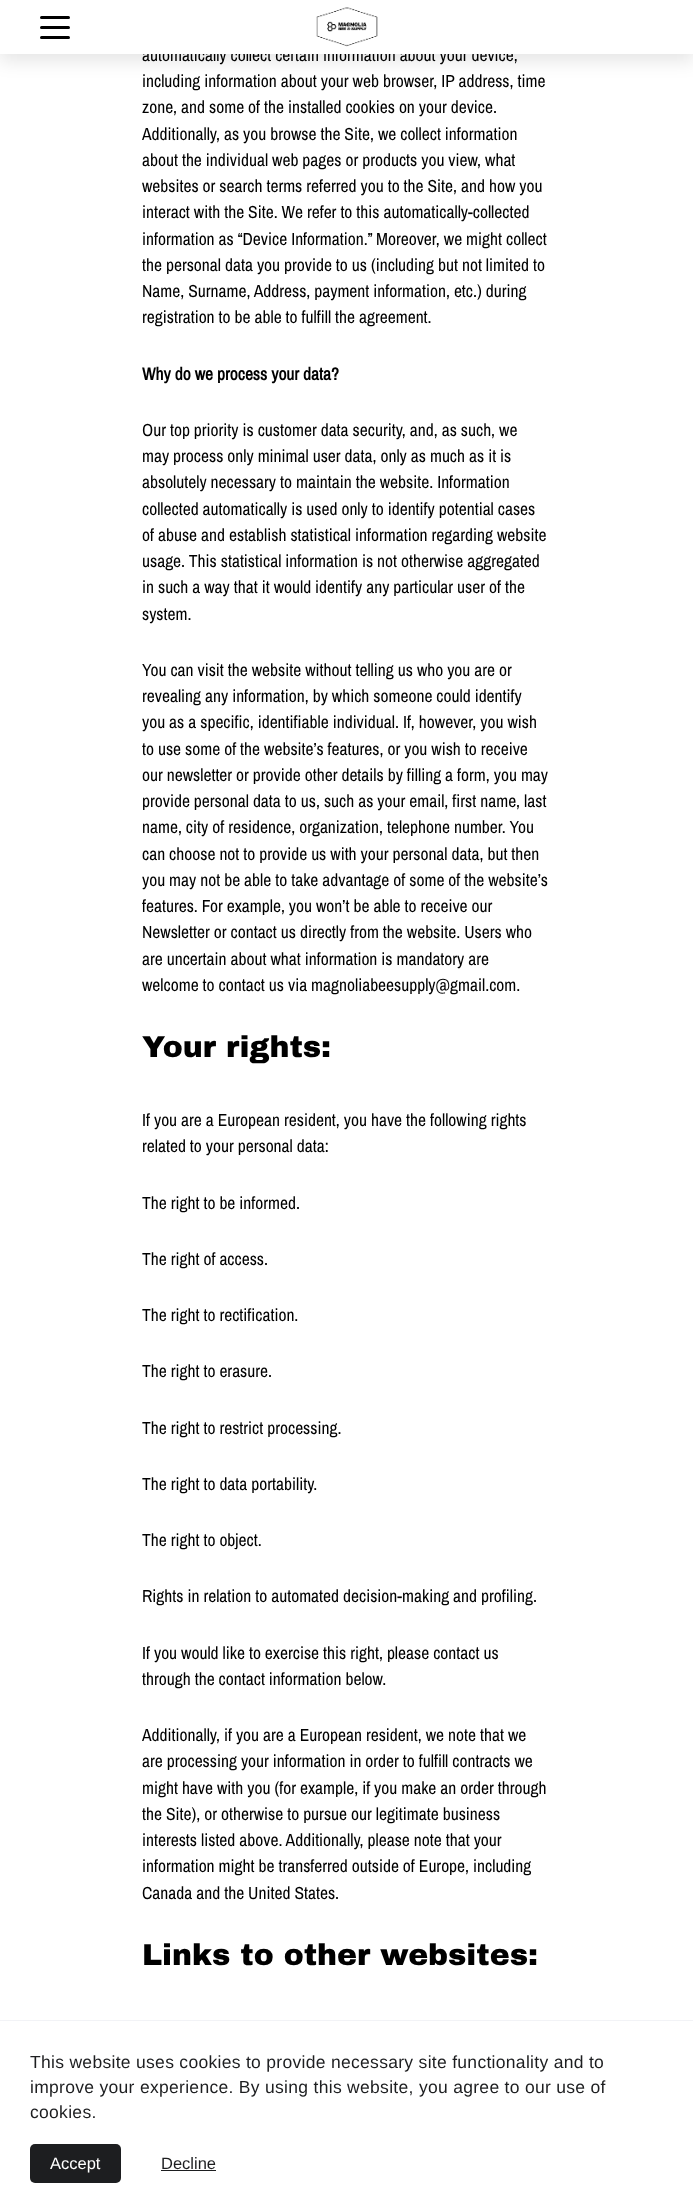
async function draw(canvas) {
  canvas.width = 693;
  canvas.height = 2209;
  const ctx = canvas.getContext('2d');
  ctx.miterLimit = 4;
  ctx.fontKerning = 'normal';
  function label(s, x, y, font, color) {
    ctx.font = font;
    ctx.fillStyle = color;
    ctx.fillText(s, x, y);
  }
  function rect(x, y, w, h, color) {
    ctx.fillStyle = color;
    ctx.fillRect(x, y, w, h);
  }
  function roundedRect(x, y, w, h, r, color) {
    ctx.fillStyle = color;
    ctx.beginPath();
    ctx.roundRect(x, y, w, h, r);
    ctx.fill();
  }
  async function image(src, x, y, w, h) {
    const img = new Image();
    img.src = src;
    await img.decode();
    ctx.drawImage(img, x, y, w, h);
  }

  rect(0, 0, 693, 2209, '#fff');
  ctx.fillStyle = '#0000001a';
  ctx.filter = 'blur(9px)';
  ctx.beginPath();
  ctx.rect(0, 8, 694, 53);
  ctx.fill();
  ctx.filter = 'none';
  label('automatically collect certain information about your device,', 142, 61, '17.5px Archivo Narrow', '#000');
  rect(0, 0, 693, 54, '#fff');
  roundedRect(40, 16, 30, 3, 1.5, '#000');
  roundedRect(40, 26, 30, 3, 1.5, '#000');
  roundedRect(40, 36, 30, 3, 1.5, '#000');
  await image('assets/img1.png', 316, 7, 62, 40);
  label('including information about your web browser, IP address, time', 142, 87, '17.5px Archivo Narrow', '#000');
  label('zone, and some of the installed cookies on your device.', 142, 113, '17.5px Archivo Narrow', '#000');
  label('Additionally, as you browse the Site, we collect information', 142, 140, '17.5px Archivo Narrow', '#000');
  label('about the individual web pages or products you view, what', 142, 166, '17.5px Archivo Narrow', '#000');
  label('websites or search terms referred you to the Site, and how you', 142, 192, '17.5px Archivo Narrow', '#000');
  label('interact with the Site. We refer to this automatically-collected', 142, 218, '17.5px Archivo Narrow', '#000');
  label('information as “Device Information.” Moreover, we might collect', 142, 245, '17.5px Archivo Narrow', '#000');
  label('the personal data you provide to us (including but not limited to', 142, 271, '17.5px Archivo Narrow', '#000');
  label('Name, Surname, Address, payment information, etc.) during', 142, 297, '17.5px Archivo Narrow', '#000');
  label('registration to be able to fulfill the agreement.', 142, 323, '17.5px Archivo Narrow', '#000');
  label('Why do we process your data?', 142, 380, 'bold 17.5px Archivo Narrow', '#000');
  label('Our top priority is customer data security, and, as such, we', 142, 436, '17.5px Archivo Narrow', '#000');
  label('may process only minimal user data, only as much as it is', 142, 462, '17.5px Archivo Narrow', '#000');
  label('absolutely necessary to maintain the website. Information', 142, 488, '17.5px Archivo Narrow', '#000');
  label('collected automatically is used only to identify potential cases', 142, 515, '17.5px Archivo Narrow', '#000');
  label('of abuse and establish statistical information regarding website', 142, 541, '17.5px Archivo Narrow', '#000');
  label('usage. This statistical information is not otherwise aggregated', 142, 567, '17.5px Archivo Narrow', '#000');
  label('in such a way that it would identify any particular user of the', 142, 593, '17.5px Archivo Narrow', '#000');
  label('system.', 142, 620, '17.5px Archivo Narrow', '#000');
  label('You can visit the website without telling us who you are or', 142, 676, '17.5px Archivo Narrow', '#000');
  label('revealing any information, by which someone could identify', 142, 702, '17.5px Archivo Narrow', '#000');
  label('you as a specific, identifiable individual. If, however, you wish', 142, 728, '17.5px Archivo Narrow', '#000');
  label('to use some of the website’s features, or you wish to receive', 142, 755, '17.5px Archivo Narrow', '#000');
  label('our newsletter or provide other details by filling a form, you may', 142, 781, '17.5px Archivo Narrow', '#000');
  label('provide personal data to us, such as your email, first name, last', 142, 807, '17.5px Archivo Narrow', '#000');
  label('name, city of residence, organization, telephone number. You', 142, 833, '17.5px Archivo Narrow', '#000');
  label('can choose not to provide us with your personal data, but then', 142, 860, '17.5px Archivo Narrow', '#000');
  label('you may not be able to take advantage of some of the website’s', 142, 886, '17.5px Archivo Narrow', '#000');
  label('features. For example, you won’t be able to receive our', 142, 912, '17.5px Archivo Narrow', '#000');
  label('Newsletter or contact us directly from the website. Users who', 142, 938, '17.5px Archivo Narrow', '#000');
  label('are uncertain about what information is mandatory are', 142, 965, '17.5px Archivo Narrow', '#000');
  label('welcome to contact us via magnoliabeesupply@gmail.com.', 142, 991, '17.5px Archivo Narrow', '#000');
  label('Your rights:', 142, 1057, '900 30px Archivo Black', '#000');
  label('If you are a European resident, you have the following rights', 142, 1126, '17.5px Archivo Narrow', '#000');
  label('related to your personal data:', 142, 1152, '17.5px Archivo Narrow', '#000');
  label('The right to be informed.', 142, 1209, '17.5px Archivo Narrow', '#000');
  label('The right of access.', 142, 1265, '17.5px Archivo Narrow', '#000');
  label('The right to rectification.', 142, 1321, '17.5px Archivo Narrow', '#000');
  label('The right to erasure.', 142, 1377, '17.5px Archivo Narrow', '#000');
  label('The right to restrict processing.', 142, 1434, '17.5px Archivo Narrow', '#000');
  label('The right to data portability.', 142, 1490, '17.5px Archivo Narrow', '#000');
  label('The right to object.', 142, 1546, '17.5px Archivo Narrow', '#000');
  label('Rights in relation to automated decision-making and profiling.', 142, 1602, '17.5px Archivo Narrow', '#000');
  label('If you would like to exercise this right, please contact us', 142, 1659, '17.5px Archivo Narrow', '#000');
  label('through the contact information below.', 142, 1685, '17.5px Archivo Narrow', '#000');
  label('Additionally, if you are a European resident, we note that we', 142, 1741, '17.5px Archivo Narrow', '#000');
  label('are processing your information in order to fulfill contracts we', 142, 1767, '17.5px Archivo Narrow', '#000');
  label('might have with you (for example, if you make an order through', 142, 1794, '17.5px Archivo Narrow', '#000');
  label('the Site), or otherwise to pursue our legitimate business', 142, 1820, '17.5px Archivo Narrow', '#000');
  label('interests listed above. Additionally, please note that your', 142, 1846, '17.5px Archivo Narrow', '#000');
  label('information might be transferred outside of Europe, including', 142, 1872, '17.5px Archivo Narrow', '#000');
  label('Canada and the United States.', 142, 1899, '17.5px Archivo Narrow', '#000');
  label('Links to other websites:', 142, 1965, '900 30px Archivo Black', '#000');
  rect(0, 2020, 693, 1, '#f2f3f6');
  ctx.letterSpacing = '0.3px';
  label('This website uses cookies to provide necessary site functionality and to', 30, 2068, '17.5px Liberation Sans', '#1d1e20');
  label('improve your experience. By using this website, you agree to our use of', 30, 2093, '17.5px Liberation Sans', '#1d1e20');
  label('cookies.', 30, 2118, '17.5px Liberation Sans', '#1d1e20');
  roundedRect(30, 2144, 91, 39, 5, '#1d1e20');
  ctx.letterSpacing = '0px';
  label('Accept', 50, 2169, '16.5px Liberation Sans', '#fff');
  label('Decline', 161, 2169, '16.5px Liberation Sans', '#1d1e20');
  rect(161, 2170, 55, 1, '#1d1e20');
}

draw(document.querySelector('canvas'));
